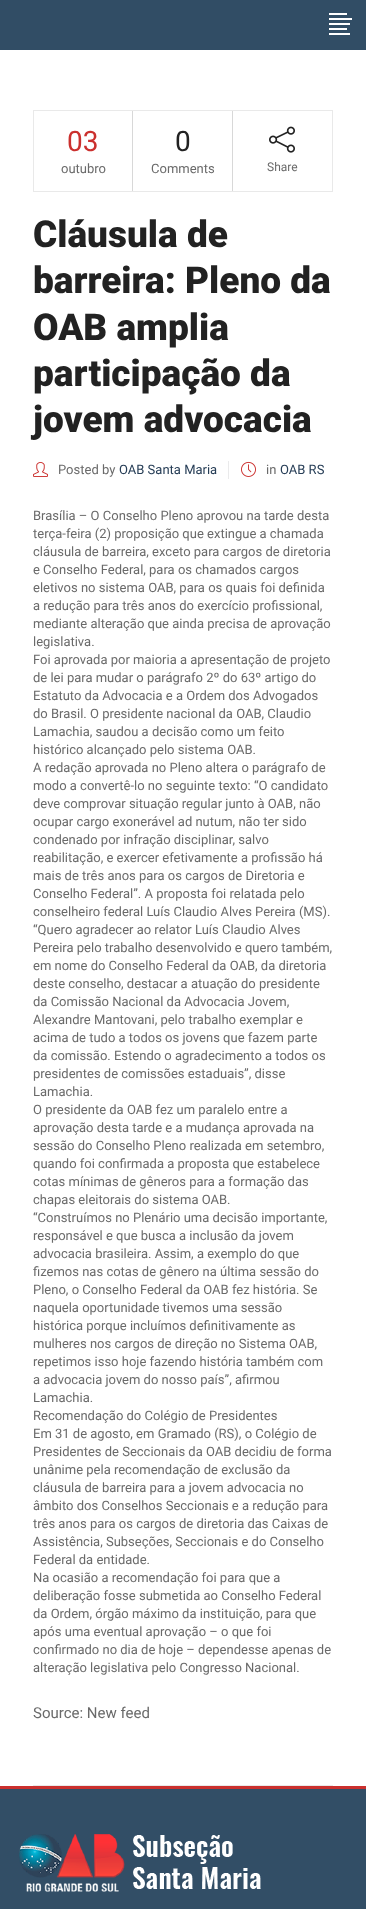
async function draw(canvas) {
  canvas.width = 366;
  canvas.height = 1909;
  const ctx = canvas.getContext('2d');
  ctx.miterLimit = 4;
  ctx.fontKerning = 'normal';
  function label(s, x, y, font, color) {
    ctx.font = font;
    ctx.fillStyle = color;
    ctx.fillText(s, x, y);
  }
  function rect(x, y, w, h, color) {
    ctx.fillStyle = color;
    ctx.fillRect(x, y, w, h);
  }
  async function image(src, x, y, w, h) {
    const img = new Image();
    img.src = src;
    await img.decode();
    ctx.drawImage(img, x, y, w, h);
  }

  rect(0, 0, 366, 1909, '#fff');
  rect(0, 0, 366, 50, '#314d65');
  rect(329, 13, 18, 2, '#fff');
  rect(329, 18, 23, 2, '#fff');
  rect(329, 23, 21, 2, '#fff');
  rect(329, 28, 18, 2, '#fff');
  rect(329, 33, 21, 2, '#fff');
  rect(33, 1785, 300, 1, '#e9e9e9');
  ctx.strokeStyle = '#e9e9e9';
  ctx.strokeRect(33.5, 110.5, 299, 81);
  rect(132, 111, 1, 80, '#d8d8d8');
  label('03', 67, 151, '28px Roboto', '#cb302e');
  label('outubro', 61, 173, '13px Roboto', '#6a6a6a');
  rect(232, 111, 1, 80, '#d8d8d8');
  label('0', 175, 151, '28px Roboto', '#222');
  label('Comments', 151, 173, '13px Roboto', '#6a6a6a');
  await image('assets/img1.png', 269, 126, 26, 27);
  label('Share', 267, 171, '12px Roboto', '#6a6a6a');
  label('Cláusula de', 33, 247, '900 37px Roboto', '#222');
  label('barreira: Pleno da', 33, 293, '900 37px Roboto', '#222');
  label('OAB amplia', 33, 340, '900 37px Roboto', '#222');
  label('participação da', 33, 386, '900 37px Roboto', '#222');
  label('jovem advocacia', 33, 432, '900 37px Roboto', '#222');
  await image('assets/img2.png', 33, 462, 15, 15);
  label('Posted by', 58, 474, '13px Roboto', '#6a6a6a');
  label('OAB Santa Maria', 119, 474, '13px Roboto', '#263d56');
  rect(228, 461, 1, 18, '#eaeaeb');
  await image('assets/img3.png', 241, 461, 15, 16);
  label('in', 266, 474, '13px Roboto', '#6a6a6a');
  label('OAB RS', 280, 474, '13px Roboto', '#263d56');
  label('Brasília – O Conselho Pleno aprovou na tarde desta', 33, 520, '13px Roboto', '#6a6a6a');
  label('terça-feira (2) proposição que extingue a chamada', 33, 538, '13px Roboto', '#6a6a6a');
  label('cláusula de barreira, exceto para cargos de diretoria', 33, 556, '13px Roboto', '#6a6a6a');
  label('e Conselho Federal, para os chamados cargos', 33, 574, '13px Roboto', '#6a6a6a');
  label('eletivos no sistema OAB, para os quais foi definida', 33, 592, '13px Roboto', '#6a6a6a');
  label('a redução para três anos do exercício profissional,', 33, 610, '13px Roboto', '#6a6a6a');
  label('mediante alteração que ainda precisa de aprovação', 33, 628, '13px Roboto', '#6a6a6a');
  label('legislativa.', 33, 646, '13px Roboto', '#6a6a6a');
  label('Foi aprovada por maioria a apresentação de projeto', 33, 664, '13px Roboto', '#6a6a6a');
  label('de lei para mudar o parágrafo 2º do 63º artigo do', 33, 682, '13px Roboto', '#6a6a6a');
  label('Estatuto da Advocacia e a Ordem dos Advogados', 33, 700, '13px Roboto', '#6a6a6a');
  label('do Brasil. O presidente nacional da OAB, Claudio', 33, 718, '13px Roboto', '#6a6a6a');
  label('Lamachia, saudou a decisão como um feito', 33, 736, '13px Roboto', '#6a6a6a');
  label('histórico alcançado pelo sistema OAB.', 33, 754, '13px Roboto', '#6a6a6a');
  label('A redação aprovada no Pleno altera o parágrafo de', 33, 772, '13px Roboto', '#6a6a6a');
  label('modo a convertê-lo no seguinte texto: “O candidato', 33, 790, '13px Roboto', '#6a6a6a');
  label('deve comprovar situação regular junto à OAB, não', 33, 808, '13px Roboto', '#6a6a6a');
  label('ocupar cargo exonerável ad nutum, não ter sido', 33, 826, '13px Roboto', '#6a6a6a');
  label('condenado por infração disciplinar, salvo', 33, 844, '13px Roboto', '#6a6a6a');
  label('reabilitação, e exercer efetivamente a profissão há', 33, 862, '13px Roboto', '#6a6a6a');
  label('mais de três anos para os cargos de Diretoria e', 33, 880, '13px Roboto', '#6a6a6a');
  label('Conselho Federal”. A proposta foi relatada pelo', 33, 898, '13px Roboto', '#6a6a6a');
  label('conselheiro federal Luís Claudio Alves Pereira (MS).', 33, 916, '13px Roboto', '#6a6a6a');
  label('“Quero agradecer ao relator Luís Claudio Alves', 33, 934, '13px Roboto', '#6a6a6a');
  label('Pereira pelo trabalho desenvolvido e quero também,', 33, 952, '13px Roboto', '#6a6a6a');
  label('em nome do Conselho Federal da OAB, da diretoria', 33, 970, '13px Roboto', '#6a6a6a');
  label('deste conselho, destacar a atuação do presidente', 33, 988, '13px Roboto', '#6a6a6a');
  label('da Comissão Nacional da Advocacia Jovem,', 33, 1006, '13px Roboto', '#6a6a6a');
  label('Alexandre Mantovani, pelo trabalho exemplar e', 33, 1024, '13px Roboto', '#6a6a6a');
  label('acima de tudo a todos os jovens que fazem parte', 33, 1042, '13px Roboto', '#6a6a6a');
  label('da comissão. Estendo o agradecimento a todos os', 33, 1060, '13px Roboto', '#6a6a6a');
  label('presidentes de comissões estaduais”, disse', 33, 1078, '13px Roboto', '#6a6a6a');
  label('Lamachia.', 33, 1096, '13px Roboto', '#6a6a6a');
  label('O presidente da OAB fez um paralelo entre a', 33, 1114, '13px Roboto', '#6a6a6a');
  label('aprovação desta tarde e a mudança aprovada na', 33, 1132, '13px Roboto', '#6a6a6a');
  label('sessão do Conselho Pleno realizada em setembro,', 33, 1150, '13px Roboto', '#6a6a6a');
  label('quando foi confirmada a proposta que estabelece', 33, 1168, '13px Roboto', '#6a6a6a');
  label('cotas mínimas de gêneros para a formação das', 33, 1186, '13px Roboto', '#6a6a6a');
  label('chapas eleitorais do sistema OAB.', 33, 1204, '13px Roboto', '#6a6a6a');
  label('“Construímos no Plenário uma decisão importante,', 33, 1222, '13px Roboto', '#6a6a6a');
  label('responsável e que busca a inclusão da jovem', 33, 1240, '13px Roboto', '#6a6a6a');
  label('advocacia brasileira. Assim, a exemplo do que', 33, 1258, '13px Roboto', '#6a6a6a');
  label('fizemos nas cotas de gênero na última sessão do', 33, 1276, '13px Roboto', '#6a6a6a');
  label('Pleno, o Conselho Federal da OAB fez história. Se', 33, 1294, '13px Roboto', '#6a6a6a');
  label('naquela oportunidade tivemos uma sessão', 33, 1312, '13px Roboto', '#6a6a6a');
  label('histórica porque incluímos definitivamente as', 33, 1330, '13px Roboto', '#6a6a6a');
  label('mulheres nos cargos de direção no Sistema OAB,', 33, 1348, '13px Roboto', '#6a6a6a');
  label('repetimos isso hoje fazendo história também com', 33, 1366, '13px Roboto', '#6a6a6a');
  label('a advocacia jovem do nosso país”, afirmou', 33, 1384, '13px Roboto', '#6a6a6a');
  label('Lamachia.', 33, 1402, '13px Roboto', '#6a6a6a');
  label('Recomendação do Colégio de Presidentes', 33, 1420, '13px Roboto', '#6a6a6a');
  label('Em 31 de agosto, em Gramado (RS), o Colégio de', 33, 1438, '13px Roboto', '#6a6a6a');
  label('Presidentes de Seccionais da OAB decidiu de forma', 33, 1456, '13px Roboto', '#6a6a6a');
  label('unânime pela recomendação de exclusão da', 33, 1474, '13px Roboto', '#6a6a6a');
  label('cláusula de barreira para a jovem advocacia no', 33, 1492, '13px Roboto', '#6a6a6a');
  label('âmbito dos Conselhos Seccionais e a redução para', 33, 1510, '13px Roboto', '#6a6a6a');
  label('três anos para os cargos de diretoria das Caixas de', 33, 1528, '13px Roboto', '#6a6a6a');
  label('Assistência, Subseções, Seccionais e do Conselho', 33, 1546, '13px Roboto', '#6a6a6a');
  label('Federal da entidade.', 33, 1564, '13px Roboto', '#6a6a6a');
  label('Na ocasião a recomendação foi para que a', 33, 1582, '13px Roboto', '#6a6a6a');
  label('deliberação fosse submetida ao Conselho Federal', 33, 1600, '13px Roboto', '#6a6a6a');
  label('da Ordem, órgão máximo da instituição, para que', 33, 1618, '13px Roboto', '#6a6a6a');
  label('após uma eventual aprovação – o que foi', 33, 1636, '13px Roboto', '#6a6a6a');
  label('confirmado no dia de hoje – dependesse apenas de', 33, 1654, '13px Roboto', '#6a6a6a');
  label('alteração legislativa pelo Congresso Nacional.', 33, 1672, '13px Roboto', '#6a6a6a');
  label('Source: New feed', 33, 1718, '15px Roboto', '#6a6a6a');
  rect(0, 1789, 366, 120, '#324e66');
  rect(0, 1786, 366, 3, '#cb302e');
  await image('assets/img4.png', 19, 1834, 242, 58);
}

draw(document.querySelector('canvas'));
